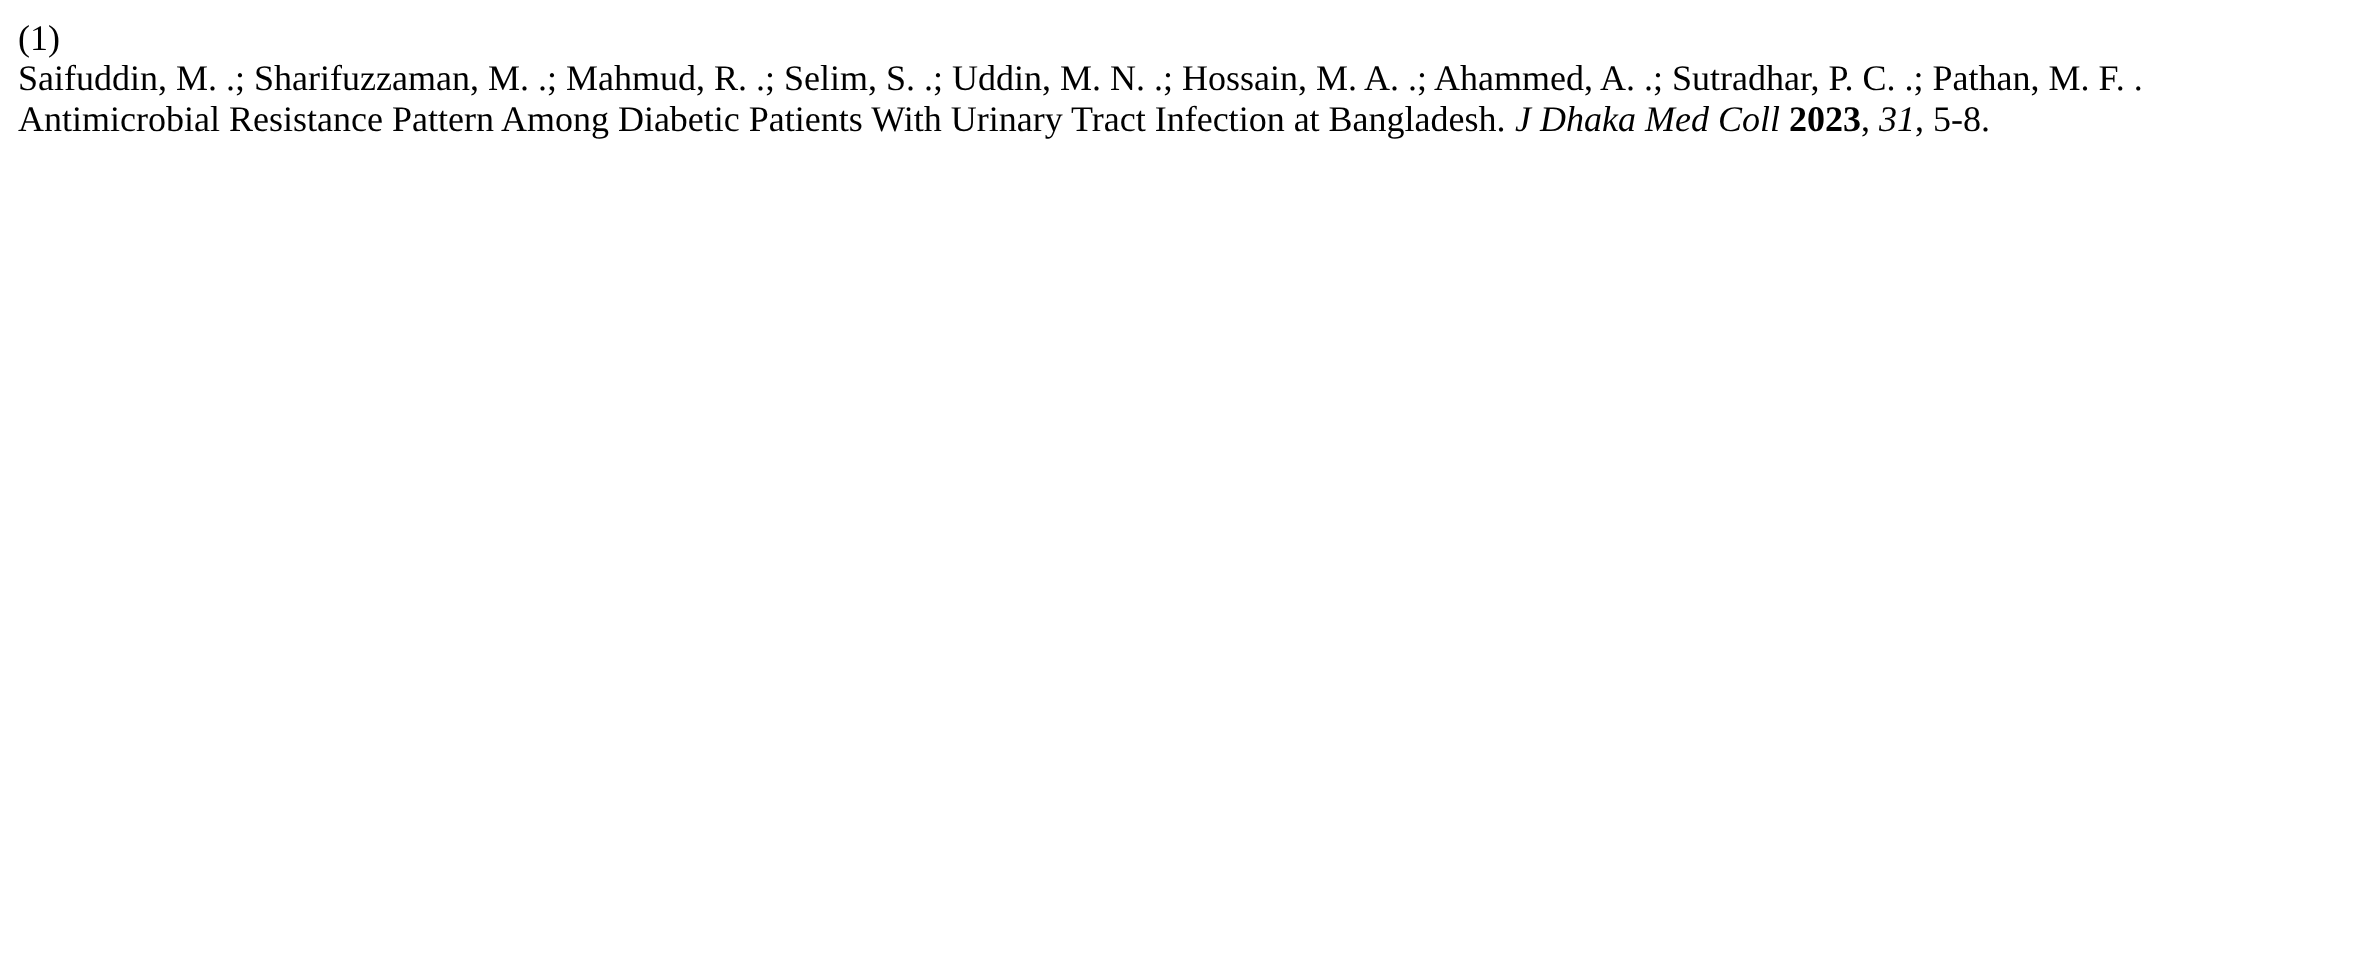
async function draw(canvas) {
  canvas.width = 2355;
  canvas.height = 956;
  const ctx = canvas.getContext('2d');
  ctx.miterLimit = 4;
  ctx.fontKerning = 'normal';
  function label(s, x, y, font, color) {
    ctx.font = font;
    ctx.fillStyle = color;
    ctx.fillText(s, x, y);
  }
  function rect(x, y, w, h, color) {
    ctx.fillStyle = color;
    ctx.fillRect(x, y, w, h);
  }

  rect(0, 0, 2355, 956, '#fff');
  label('(1)', 18, 50, '36px Liberation Serif', '#000');
  label('Saifuddin, M. .; Sharifuzzaman, M. .; Mahmud, R. .; Selim, S. .; Uddin, M. N. .; Hossain, M. A. .; Ahammed, A. .; Sutradhar, P. C. .; Pathan, M. F. .', 18, 90, '36px Liberation Serif', '#000');
  label('Antimicrobial Resistance Pattern Among Diabetic Patients With Urinary Tract Infection at Bangladesh.', 18, 131, '36px Liberation Serif', '#000');
  label('J Dhaka Med Coll', 1515, 131, 'italic 36px Liberation Serif', '#000');
  label('2023', 1789, 131, 'bold 36px Liberation Serif', '#000');
  label(',', 1861, 131, '36px Liberation Serif', '#000');
  label('31', 1879, 131, 'italic 36px Liberation Serif', '#000');
  label(', 5-8.', 1915, 131, '36px Liberation Serif', '#000');
}

draw(document.querySelector('canvas'));
